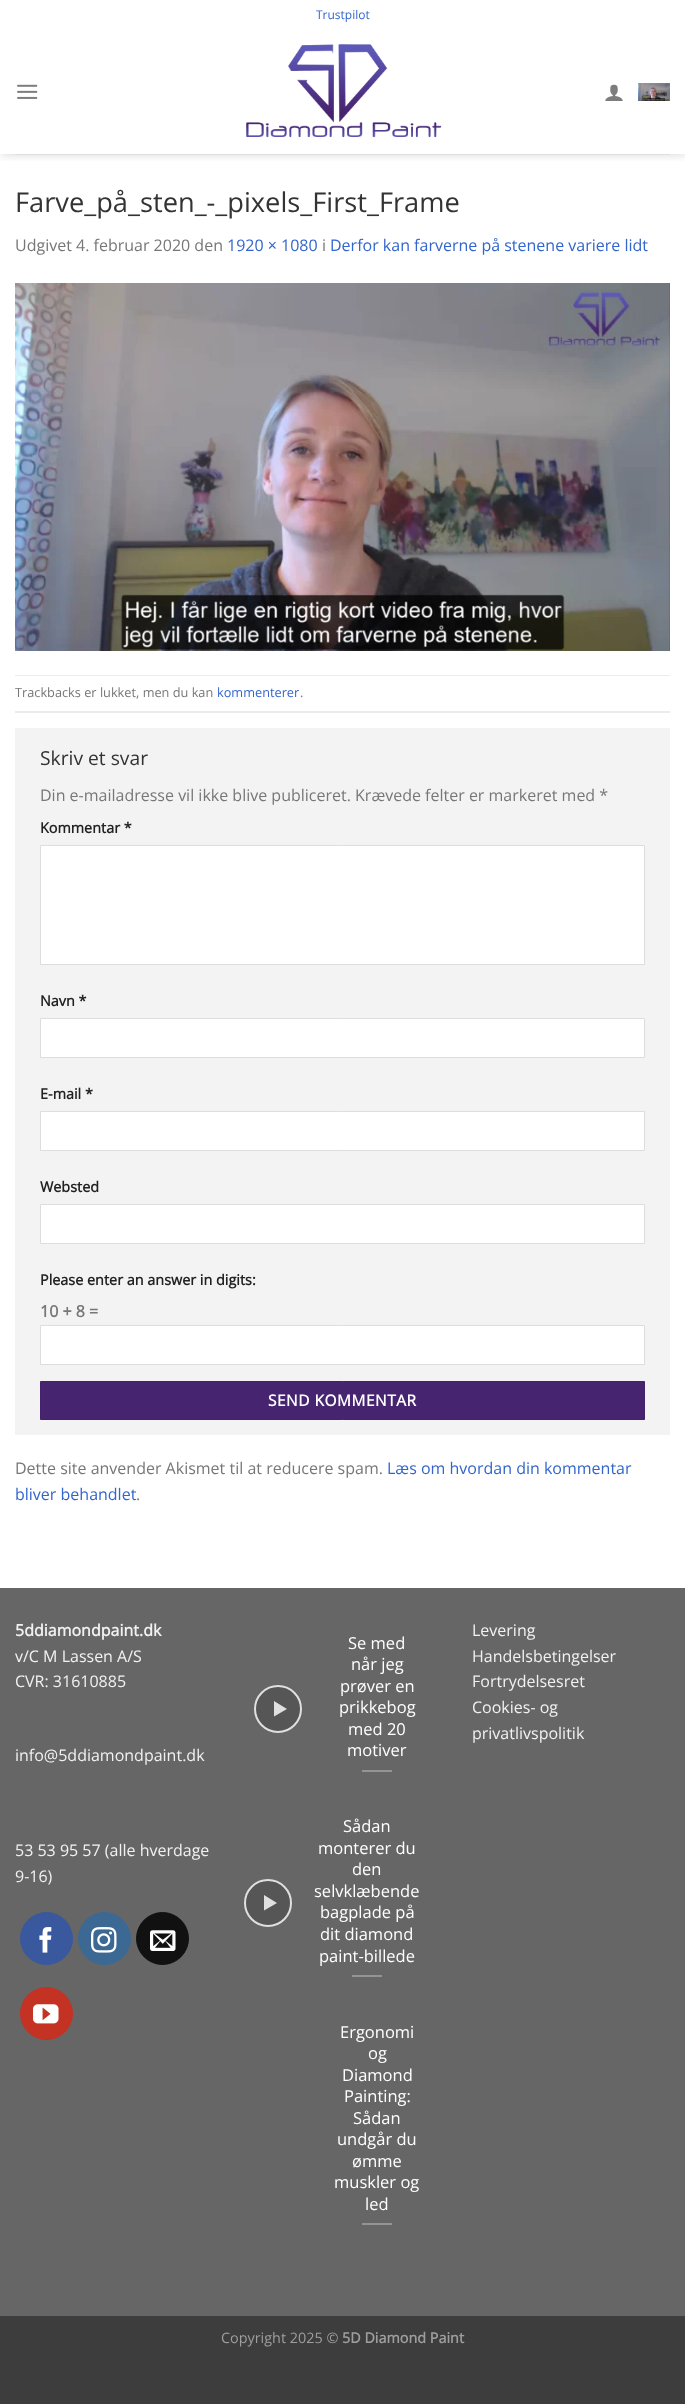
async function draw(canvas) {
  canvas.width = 685;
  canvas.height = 2404;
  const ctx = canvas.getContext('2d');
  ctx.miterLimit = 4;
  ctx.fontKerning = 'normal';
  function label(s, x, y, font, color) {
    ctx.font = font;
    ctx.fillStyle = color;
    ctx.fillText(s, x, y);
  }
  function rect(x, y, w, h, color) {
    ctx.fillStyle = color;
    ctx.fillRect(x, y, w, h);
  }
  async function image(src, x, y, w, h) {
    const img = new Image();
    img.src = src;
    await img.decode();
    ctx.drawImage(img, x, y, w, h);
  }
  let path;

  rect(0, 0, 685, 2404, '#3d3d3d');
  rect(0, 0, 685, 1588, '#fff');
  ctx.save();
  ctx.beginPath();
  ctx.rect(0, 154, 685, 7);
  ctx.clip();
  ctx.fillStyle = '#00000026';
  ctx.filter = 'blur(5px)';
  ctx.beginPath();
  ctx.rect(1, 1, 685, 154);
  ctx.fill();
  ctx.filter = 'none';
  ctx.restore();
  label('Trustpilot', 316, 19, '12px Open Sans', '#36c');
  await image('assets/img1.png', 17, 84, 21, 15);
  await image('assets/img2.png', 246, 44, 196, 94);
  await image('assets/img3.png', 605, 84, 18, 17);
  await image('assets/img4.png', 638, 83, 32, 18);
  rect(15, 154, 655, 1, '#dfdfdf');
  label('Farve_på_sten_-_pixels_First_Frame', 15, 212, '27.25px Open Sans', '#333');
  label('Udgivet 4. februar 2020 den', 15, 251, '16px Open Sans', '#777');
  label('1920 × 1080', 227, 251, '16px Open Sans', '#36c');
  label('i', 322, 251, '16px Open Sans', '#777');
  label('Derfor kan farverne på stenene variere lidt', 330, 251, '16px Open Sans', '#36c');
  await image('assets/img5.png', 15, 283, 655, 368);
  rect(15, 675, 655, 1, '#ececec');
  rect(15, 711, 655, 2, '#ececec');
  label('Trackbacks er lukket, men du kan', 15, 697, '12.75px Open Sans', '#777');
  label('kommenterer', 217, 697, '12.75px Open Sans', '#36c');
  label('.', 300, 697, '12.75px Open Sans', '#777');
  rect(15, 728, 655, 707, '#f3f3f3');
  label('Skriv et svar', 40, 765, '19.25px Open Sans', '#333');
  label('Din e-mailadresse vil ikke blive publiceret. Krævede felter er markeret med *', 40, 801, '16px Open Sans', '#777');
  label('Kommentar *', 40, 833, 'bold 14.4px Open Sans', '#222');
  ctx.fillStyle = '#fff';
  ctx.beginPath();
  ctx.rect(40.5, 845.5, 604, 119);
  ctx.fill();
  ctx.strokeStyle = '#ddd';
  ctx.stroke();
  label('Navn *', 40, 1006, 'bold 14.4px Open Sans', '#222');
  ctx.fillStyle = '#fff';
  ctx.beginPath();
  ctx.rect(40.5, 1018.5, 604, 39);
  ctx.fill();
  ctx.stroke();
  label('E-mail *', 40, 1099, 'bold 14.4px Open Sans', '#222');
  ctx.fillStyle = '#fff';
  ctx.beginPath();
  ctx.rect(40.5, 1111.5, 604, 39);
  ctx.fill();
  ctx.stroke();
  label('Websted', 40, 1192, 'bold 14.4px Open Sans', '#222');
  ctx.fillStyle = '#fff';
  ctx.beginPath();
  ctx.rect(40.5, 1204.5, 604, 39);
  ctx.fill();
  ctx.stroke();
  label('Please enter an answer in digits:', 40, 1285, 'bold 14.4px Open Sans', '#222');
  label('10 + 8 =', 40, 1317, 'bold 16px Open Sans', '#777');
  ctx.fillStyle = '#fff';
  ctx.beginPath();
  ctx.rect(40.5, 1325.5, 604, 39);
  ctx.fill();
  ctx.stroke();
  ctx.fillStyle = '#462470';
  ctx.beginPath();
  ctx.rect(40.5, 1381.5, 604, 38);
  ctx.fill();
  ctx.strokeStyle = '#43226a';
  ctx.stroke();
  ctx.letterSpacing = '0.5px';
  label('SEND KOMMENTAR', 268, 1406, 'bold 15.5px Open Sans', '#fff');
  ctx.letterSpacing = '0px';
  label('Dette site anvender Akismet til at reducere spam.', 15, 1474, '16px Open Sans', '#777');
  label('Læs om hvordan din kommentar', 387, 1474, '16px Open Sans', '#36c');
  label('bliver behandlet', 15, 1500, '16px Open Sans', '#36c');
  label('.', 136, 1500, '16px Open Sans', '#777');
  rect(0, 1588, 685, 728, '#666');
  label('5ddiamondpaint.dk', 15, 1636, 'bold 16px Open Sans', '#f1f1f1');
  label('v/C M Lassen A/S', 15, 1662, '16px Open Sans', '#f1f1f1');
  label('CVR: 31610885', 15, 1687, '16px Open Sans', '#f1f1f1');
  label('info@5ddiamondpaint.dk', 15, 1761, '16px Open Sans', '#f1f1f1');
  label('53 53 95 57 (alle hverdage', 15, 1856, '16px Open Sans', '#f1f1f1');
  label('9-16)', 15, 1882, '16px Open Sans', '#f1f1f1');
  ctx.fillStyle = '#3a589d';
  ctx.beginPath();
  ctx.arc(46.5, 1938.5, 26, 0, 2 * Math.PI);
  ctx.fill();
  ctx.strokeStyle = '#3a589d';
  ctx.stroke();
  await image('assets/img6.png', 39, 1927, 13, 26);
  ctx.fillStyle = '#3b6994';
  ctx.beginPath();
  ctx.arc(104.5, 1938.5, 26, 0, 2 * Math.PI);
  ctx.fill();
  ctx.strokeStyle = '#3b6994';
  ctx.stroke();
  await image('assets/img7.png', 91, 1927, 26, 26);
  ctx.fillStyle = '#111';
  ctx.beginPath();
  ctx.arc(162.5, 1938.5, 26, 0, 2 * Math.PI);
  ctx.fill();
  ctx.strokeStyle = '#111';
  ctx.stroke();
  await image('assets/img8.png', 150, 1930, 26, 21);
  ctx.fillStyle = '#c33223';
  ctx.beginPath();
  ctx.arc(46.5, 2013.5, 26, 0, 2 * Math.PI);
  ctx.fill();
  ctx.strokeStyle = '#c33223';
  ctx.stroke();
  await image('assets/img9.png', 33, 2004, 26, 20);
  ctx.fillStyle = '#565656';
  ctx.beginPath();
  ctx.arc(278, 1709, 23, 0, 2 * Math.PI);
  ctx.fill();
  ctx.strokeStyle = '#e0e0e0';
  ctx.lineWidth = 2;
  ctx.stroke();
  ctx.fillStyle = '#e0e0e0';
  path = new Path2D('M274 1701L287 1709L274 1716.5Z');
  ctx.fill(path);
  label('Se med', 348, 1649, '16.5px Open Sans', '#fff');
  label('når jeg', 351, 1670, '16.5px Open Sans', '#fff');
  label('prøver en', 340, 1692, '16.5px Open Sans', '#fff');
  label('prikkebog', 339, 1713, '16.5px Open Sans', '#fff');
  label('med 20', 348, 1735, '16.5px Open Sans', '#fff');
  label('motiver', 347, 1756, '16.5px Open Sans', '#fff');
  rect(362, 1770, 30, 2, '#949494');
  ctx.fillStyle = '#565656';
  ctx.beginPath();
  ctx.arc(268, 1903, 23, 0, 2 * Math.PI);
  ctx.fill();
  ctx.stroke();
  ctx.fillStyle = '#e0e0e0';
  path = new Path2D('M264 1895L277 1903L264 1910.5Z');
  ctx.fill(path);
  label('Sådan', 343, 1832, '16.5px Open Sans', '#fff');
  label('monterer du', 318, 1854, '16.5px Open Sans', '#fff');
  label('den', 352, 1875, '16.5px Open Sans', '#fff');
  label('selvklæbende', 314, 1897, '16.5px Open Sans', '#fff');
  label('bagplade på', 320, 1918, '16.5px Open Sans', '#fff');
  label('dit diamond', 320, 1940, '16.5px Open Sans', '#fff');
  label('paint-billede', 319, 1962, '16.5px Open Sans', '#fff');
  rect(352, 1975, 30, 2, '#949494');
  label('Ergonomi', 340, 2038, '16.5px Open Sans', '#fff');
  label('og', 368, 2059, '16.5px Open Sans', '#fff');
  label('Diamond', 342, 2081, '16.5px Open Sans', '#fff');
  label('Painting:', 344, 2102, '16.5px Open Sans', '#fff');
  label('Sådan', 353, 2124, '16.5px Open Sans', '#fff');
  label('undgår du', 337, 2145, '16.5px Open Sans', '#fff');
  label('ømme', 352, 2167, '16.5px Open Sans', '#fff');
  label('muskler og', 334, 2188, '16.5px Open Sans', '#fff');
  label('led', 365, 2210, '16.5px Open Sans', '#fff');
  rect(362, 2223, 30, 2, '#949494');
  label('Levering', 472, 1636, '16px Open Sans', '#f1f1f1');
  label('Handelsbetingelser', 472, 1662, '16px Open Sans', '#f1f1f1');
  label('Fortrydelsesret', 472, 1687, '16px Open Sans', '#f1f1f1');
  label('Cookies- og', 472, 1713, '16px Open Sans', '#f1f1f1');
  label('privatlivspolitik', 472, 1739, '16px Open Sans', '#f1f1f1');
  label('Copyright 2025 ©', 221, 2343, '14.4px Open Sans', '#9e9e9e');
  label('5D Diamond Paint', 342, 2343, 'bold 14.4px Open Sans', '#9e9e9e');
}

draw(document.querySelector('canvas'));
